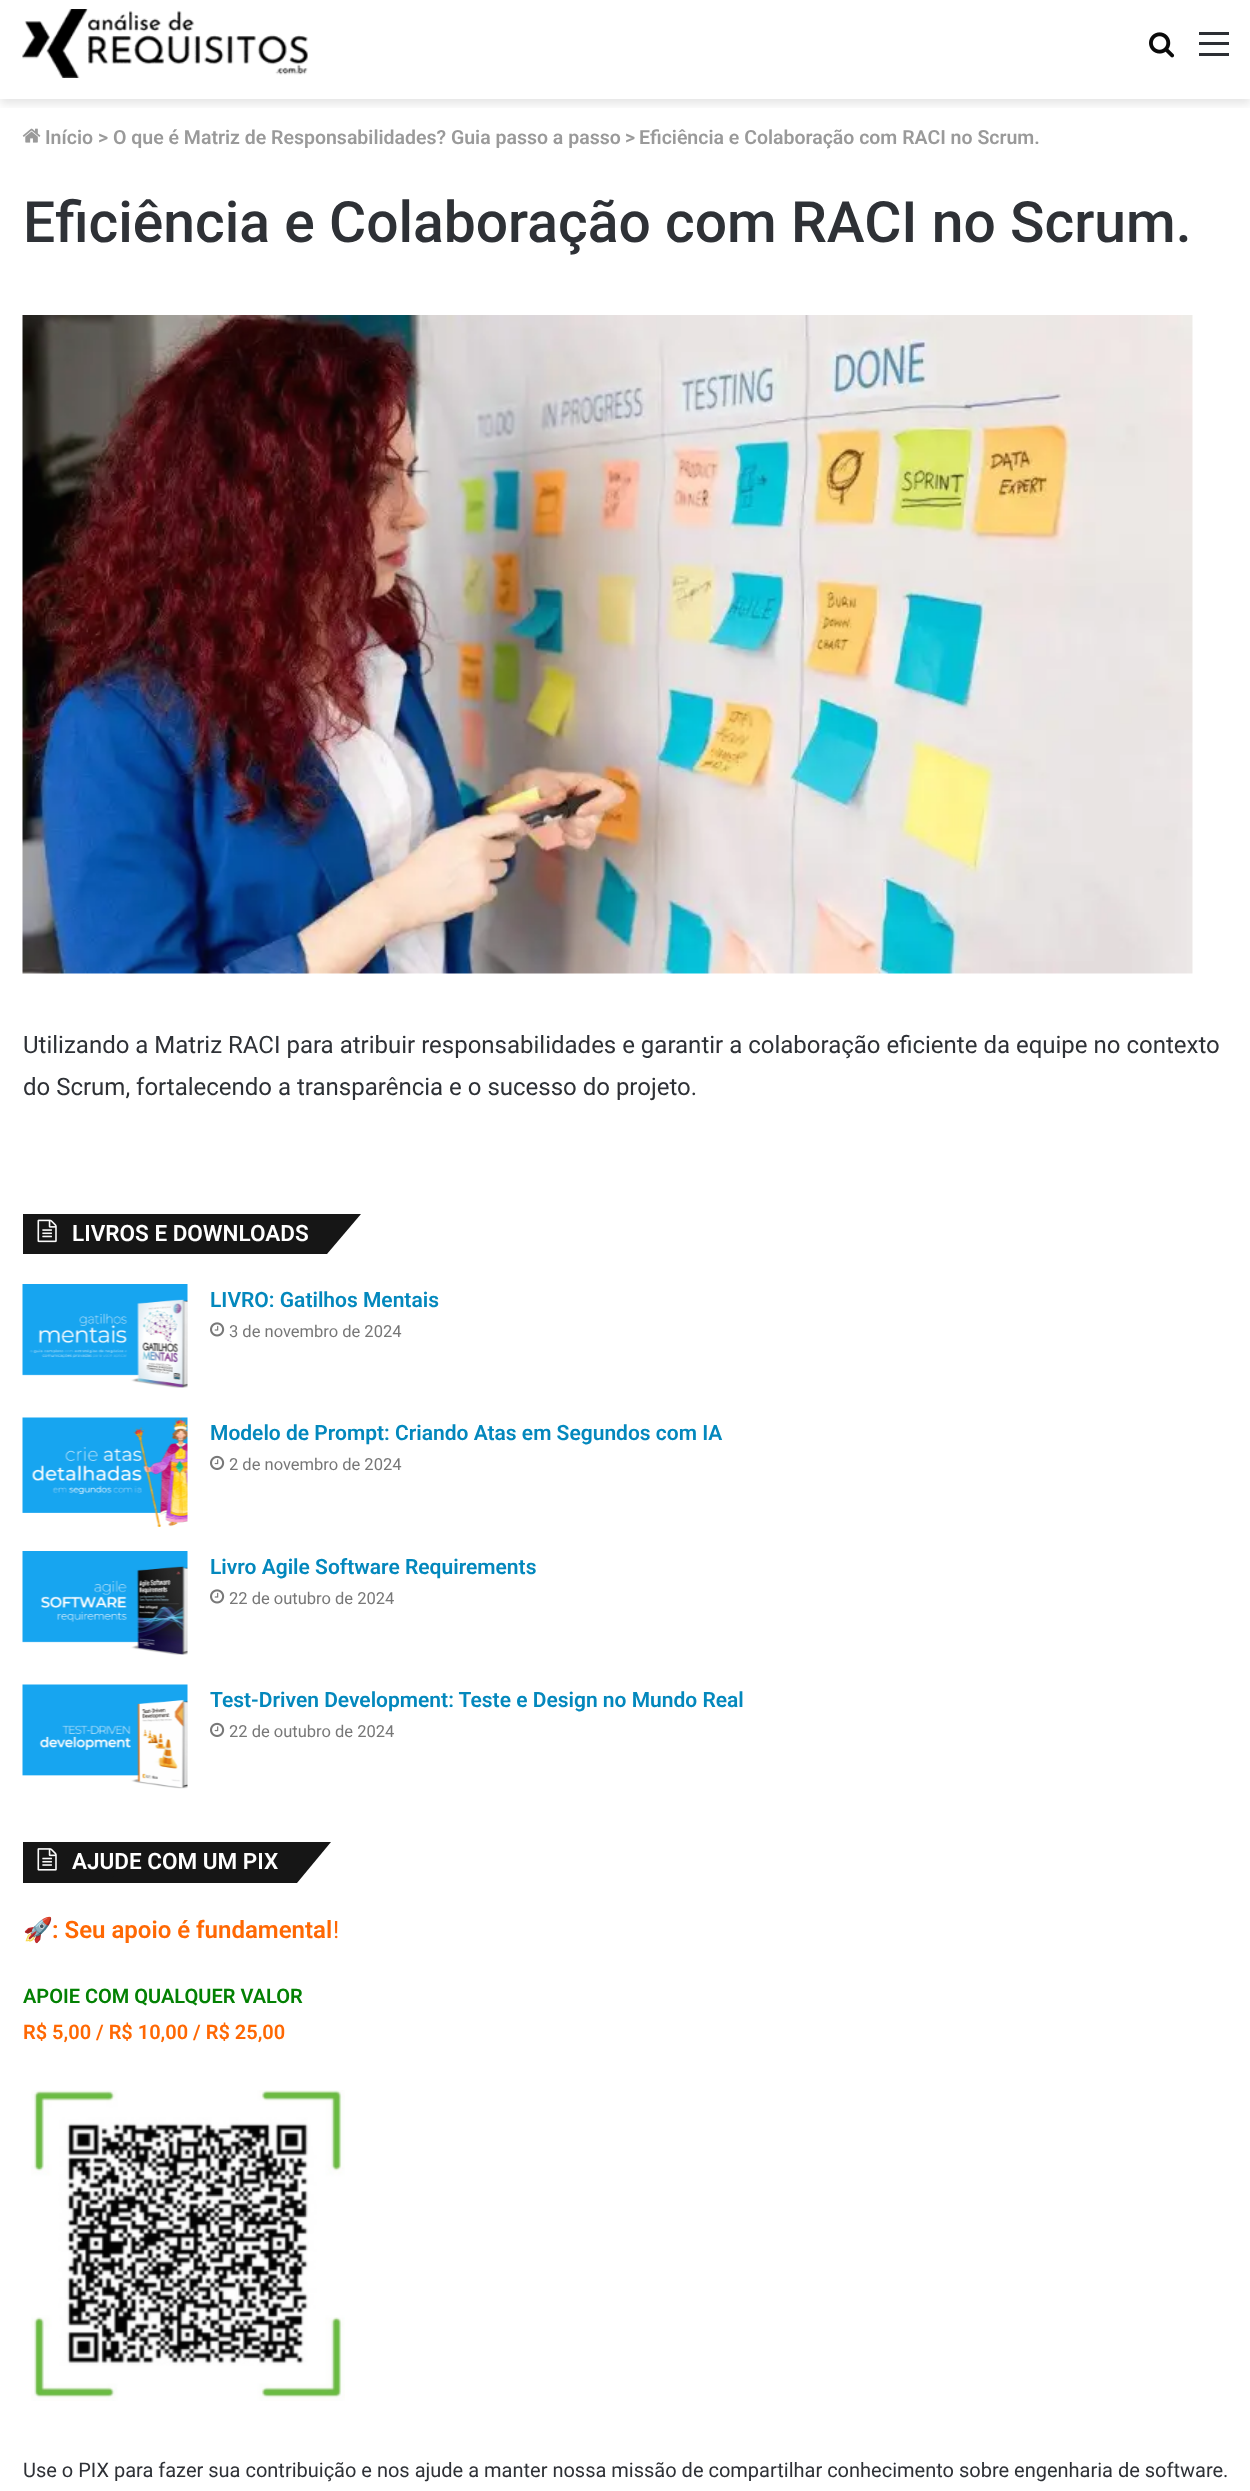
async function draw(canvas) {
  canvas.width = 1250;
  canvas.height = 2491;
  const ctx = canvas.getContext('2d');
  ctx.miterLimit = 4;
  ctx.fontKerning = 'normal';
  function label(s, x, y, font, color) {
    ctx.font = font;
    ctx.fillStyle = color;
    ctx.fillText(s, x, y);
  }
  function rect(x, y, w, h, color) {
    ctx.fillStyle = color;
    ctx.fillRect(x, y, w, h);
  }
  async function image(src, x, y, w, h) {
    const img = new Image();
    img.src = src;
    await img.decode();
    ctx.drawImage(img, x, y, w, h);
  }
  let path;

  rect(0, 0, 1250, 2491, '#fff');
  ctx.save();
  ctx.beginPath();
  ctx.rect(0, 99, 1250, 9);
  ctx.clip();
  ctx.fillStyle = '#0000001a';
  ctx.filter = 'blur(5px)';
  ctx.beginPath();
  ctx.rect(0, -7, 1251, 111);
  ctx.fill();
  ctx.filter = 'none';
  ctx.restore();
  await image('assets/img1.png', 22, 9, 286, 69);
  await image('assets/img2.png', 1149, 32, 26, 26);
  rect(1199, 42, 30, 3, '#2c2f34');
  rect(1199, 32, 30, 3, '#2c2f34');
  rect(1199, 53, 30, 3, '#2c2f34');
  await image('assets/img3.png', 22, 128, 19, 15);
  label('Início', 45, 144, '600 19.5px Roboto', '#9a9a9a');
  label('>', 98, 144, '600 19.5px Roboto', '#9a9a9a');
  label('O que é Matriz de Responsabilidades? Guia passo a passo', 113, 144, '600 19.5px Roboto', '#9a9a9a');
  label('>', 625, 144, '600 19.5px Roboto', '#9a9a9a');
  label('Eficiência e Colaboração com RACI no Scrum.', 639, 144, '600 19.5px Roboto', '#9a9a9a');
  label('Eficiência e Colaboração com RACI no Scrum.', 23, 242, '500 57px Roboto', '#2e3136');
  await image('assets/img4.png', 22, 315, 1171, 659);
  label('Utilizando a Matriz RACI para atribuir responsabilidades e garantir a colaboração eficiente da equipe no contexto', 23, 1053, '24px Roboto', '#2e3136');
  label('do Scrum, fortalecendo a transparência e o sucesso do projeto.', 23, 1095, '24px Roboto', '#2e3136');
  rect(23, 1214, 128, 40, '#161616');
  path = new Path2D('M151 1214H361L327 1254H117Z');
  ctx.fill(path);
  await image('assets/img5.png', 37, 1219, 20, 24);
  label('LIVROS E DOWNLOADS', 72, 1241, '600 22.5px Roboto', '#fff');
  await image('assets/img6.png', 22, 1284, 166, 104);
  label('LIVRO: Gatilhos Mentais', 210, 1307, '600 21px Roboto', '#0388bd');
  await image('assets/img7.png', 210, 1322, 15, 15);
  label('3 de novembro de 2024', 229, 1337, '16.5px Roboto', '#777');
  await image('assets/img8.png', 22, 1417, 166, 110);
  label('Modelo de Prompt: Criando Atas em Segundos com IA', 210, 1440, '600 21px Roboto', '#0388bd');
  await image('assets/img9.png', 210, 1455, 15, 15);
  label('2 de novembro de 2024', 229, 1470, '16.5px Roboto', '#777');
  await image('assets/img10.png', 22, 1551, 166, 104);
  label('Livro Agile Software Requirements', 210, 1574, '600 21px Roboto', '#0388bd');
  await image('assets/img7.png', 210, 1589, 15, 15);
  label('22 de outubro de 2024', 229, 1604, '16.5px Roboto', '#777');
  await image('assets/img11.png', 22, 1684, 166, 105);
  label('Test-Driven Development: Teste e Design no Mundo Real', 210, 1707, '600 21px Roboto', '#0388bd');
  await image('assets/img9.png', 210, 1722, 15, 15);
  label('22 de outubro de 2024', 229, 1737, '16.5px Roboto', '#777');
  rect(23, 1842, 119, 41, '#161616');
  path = new Path2D('M142 1842H331L297 1883H108Z');
  ctx.fill(path);
  await image('assets/img12.png', 37, 1848, 20, 23);
  label('AJUDE COM UM PIX', 72, 1869, '600 22.5px Roboto', '#fff');
  ctx.save();
  ctx.beginPath();
  ctx.rect(23, 1913, 1206, 576);
  ctx.clip();
  label('🚀', 23, 1938, 'bold 24px Noto Color Emoji', '#ff6803');
  ctx.restore();
  label(': Seu apoio é fundamental', 52, 1938, '600 24px Roboto', '#ff6803');
  label('!', 333, 1938, '24px Roboto', '#ff6803');
  label('APOIE COM QUALQUER VALOR', 23, 2003, '600 20px Roboto', '#038103');
  label('R$ 5,00 / R$ 10,00 / R$ 25,00', 23, 2039, '600 20px Roboto', '#ff6803');
  await image('assets/img13.png', 31, 2090, 314, 311);
  label('Use o PIX para fazer sua contribuição e nos ajude a manter nossa missão de compartilhar conhecimento sobre engenharia de software.', 23, 2477, '20px Roboto', '#2e3136');
}

draw(document.querySelector('canvas'));
